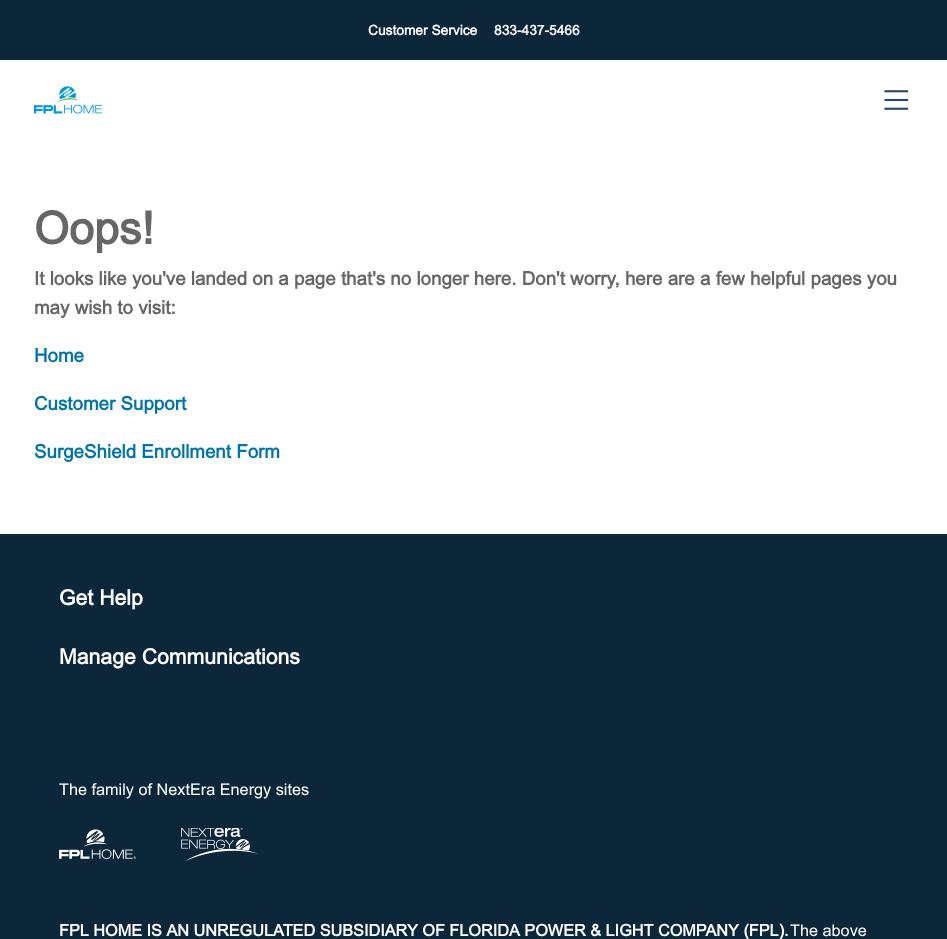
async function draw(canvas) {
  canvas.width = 947;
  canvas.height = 939;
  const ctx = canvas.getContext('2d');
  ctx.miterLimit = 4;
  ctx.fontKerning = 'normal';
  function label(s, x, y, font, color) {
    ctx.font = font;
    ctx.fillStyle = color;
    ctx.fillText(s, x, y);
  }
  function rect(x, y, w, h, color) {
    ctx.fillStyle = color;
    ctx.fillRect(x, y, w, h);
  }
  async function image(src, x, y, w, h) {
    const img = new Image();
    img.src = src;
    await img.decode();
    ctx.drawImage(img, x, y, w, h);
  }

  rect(0, 0, 947, 939, '#fff');
  rect(0, 0, 947, 60, '#0c2739');
  label('Customer Service', 368, 35, 'bold 13.75px Arial', '#fff');
  label('833-437-5466', 494, 35, 'bold 13.75px Arial', '#fff');
  await image('assets/img1.png', 34, 86, 69, 28);
  await image('assets/img2.png', 884, 90, 25, 20);
  label('Oops!', 34, 244, 'bold 45px Arial', '#666');
  label('It looks like you\'ve landed on a page that\'s no longer here. Don\'t worry, here are a few helpful pages you', 34, 285, 'bold 18.75px Arial', '#666');
  label('may wish to visit:', 34, 314, 'bold 18.75px Arial', '#666');
  label('Home', 34, 362, 'bold 18.75px Arial', '#0073a8');
  label('Customer Support', 34, 410, 'bold 18.75px Arial', '#0073a8');
  label('SurgeShield Enrollment Form', 34, 458, 'bold 18.75px Arial', '#0073a8');
  rect(0, 534, 947, 405, '#0c2739');
  label('Get Help', 59, 605, 'bold 21.25px Arial', '#fff');
  label('Manage Communications', 59, 664, 'bold 21.25px Arial', '#fff');
  label('The family of NextEra Energy sites', 59, 795, '16.25px Arial', '#fff');
  await image('assets/img3.png', 59, 829, 77, 30);
  await image('assets/img4.png', 181, 828, 78, 33);
  label('FPL HOME IS AN UNREGULATED SUBSIDIARY OF FLORIDA POWER & LIGHT COMPANY (FPL).', 59, 936, 'bold 16.25px Arial', '#fff');
  label('The above', 790, 936, '16.25px Arial', '#fff');
}

draw(document.querySelector('canvas'));
